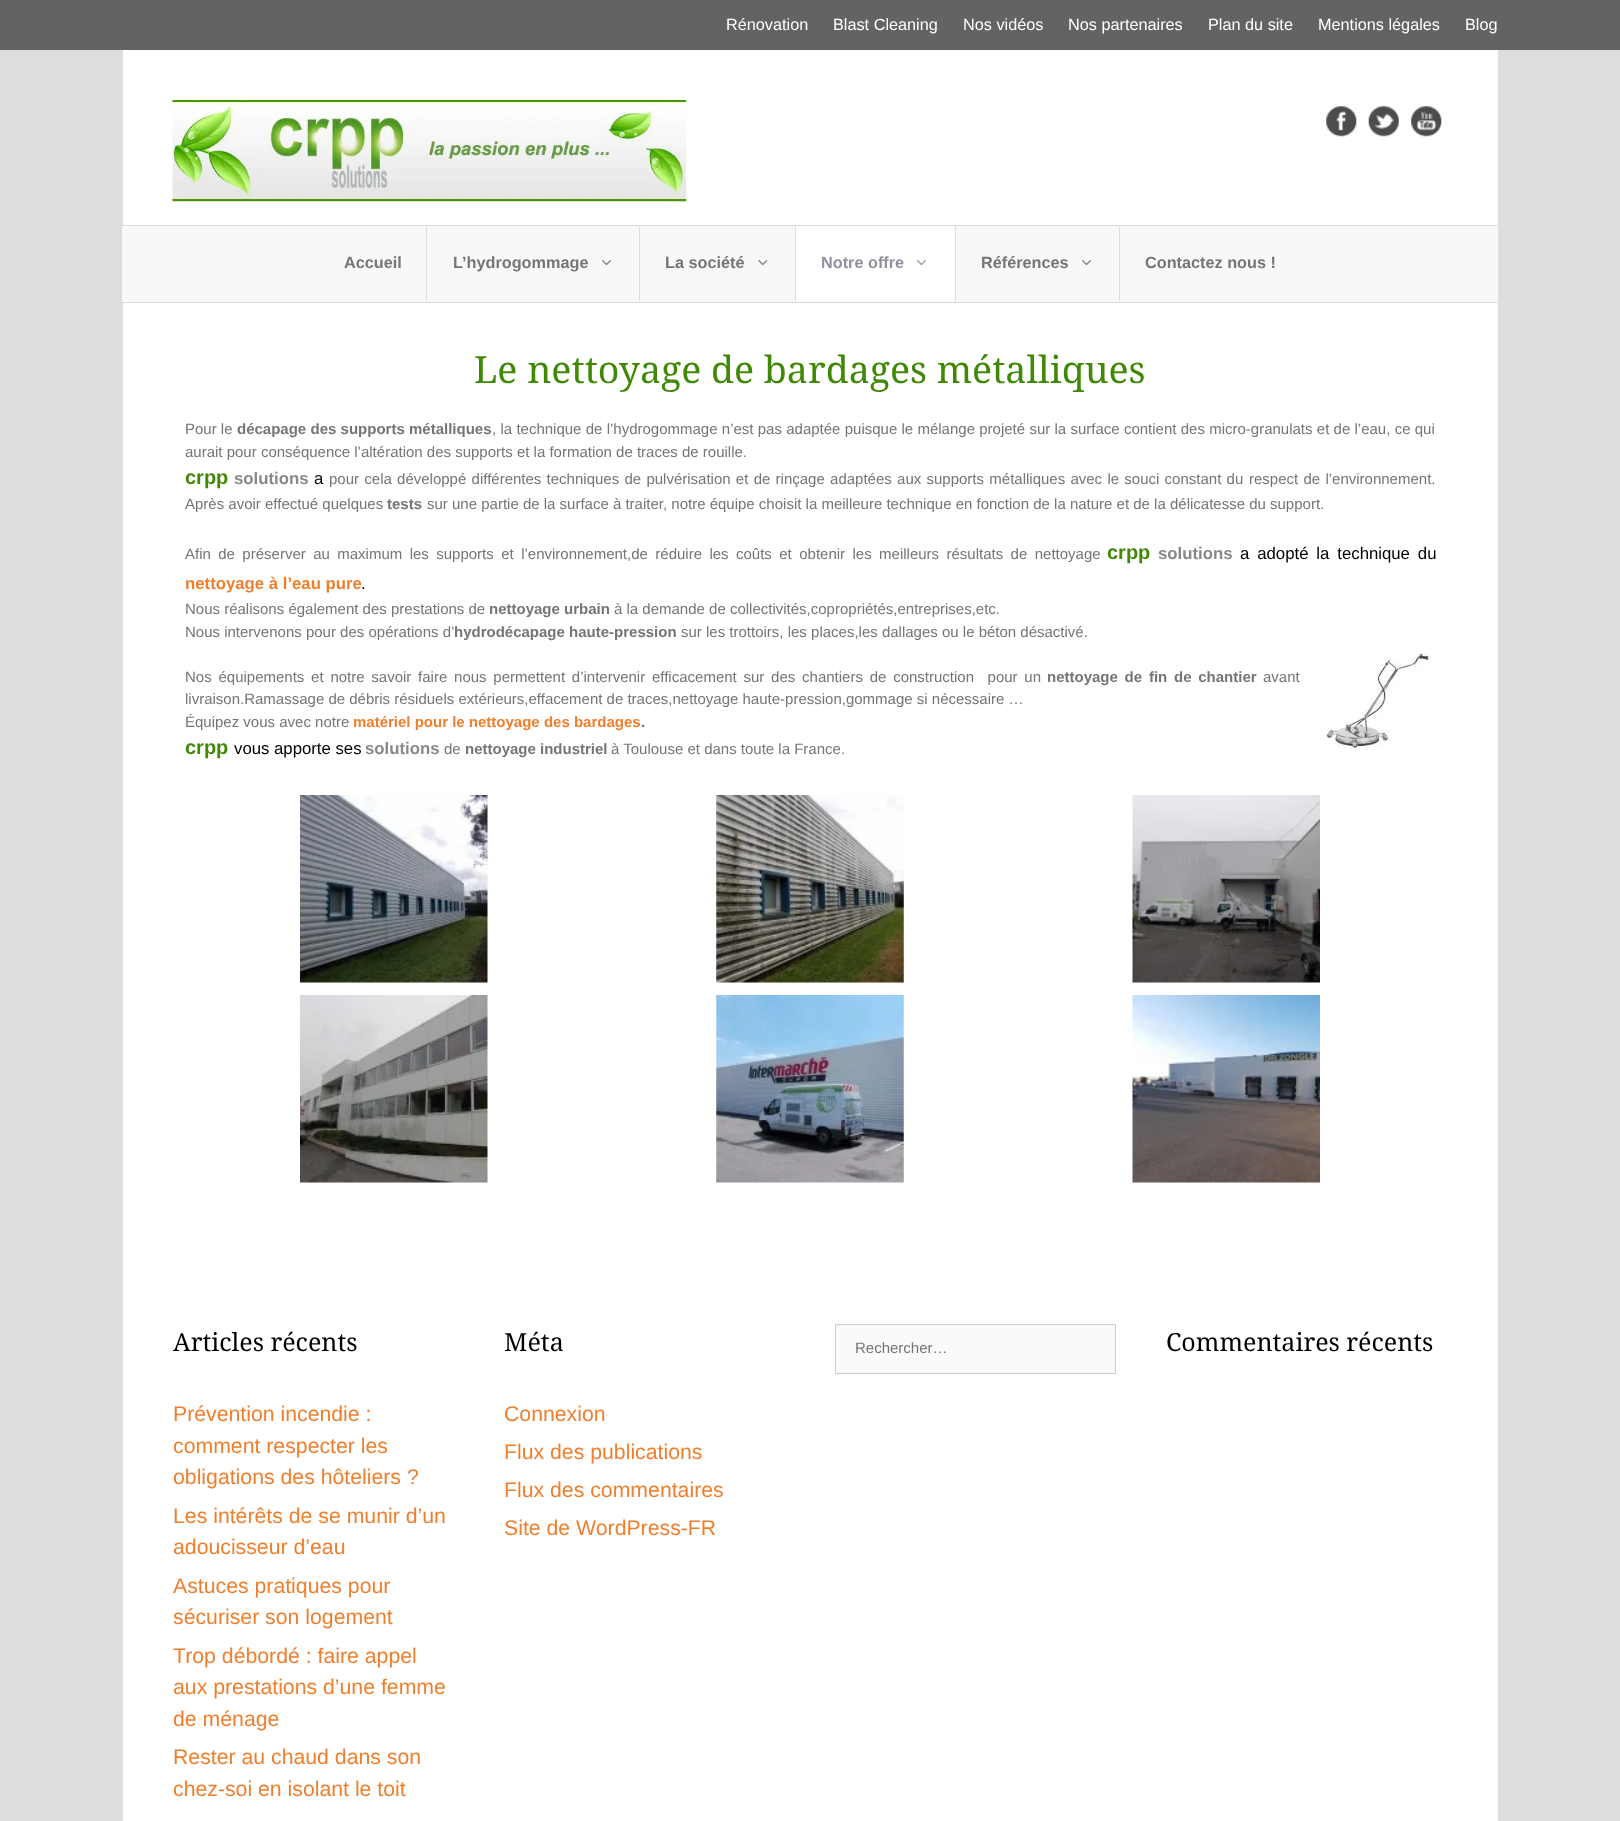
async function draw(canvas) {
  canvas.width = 1620;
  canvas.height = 1821;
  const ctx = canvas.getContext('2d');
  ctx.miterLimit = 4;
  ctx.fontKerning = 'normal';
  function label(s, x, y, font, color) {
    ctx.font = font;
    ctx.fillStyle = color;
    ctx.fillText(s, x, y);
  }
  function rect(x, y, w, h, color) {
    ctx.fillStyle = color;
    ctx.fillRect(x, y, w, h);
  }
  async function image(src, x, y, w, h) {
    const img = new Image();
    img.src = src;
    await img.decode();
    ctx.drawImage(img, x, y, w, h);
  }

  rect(0, 0, 1620, 1821, '#ddd');
  rect(0, 0, 1620, 50, '#636363');
  label('Rénovation', 726, 30, '16.25px Liberation Sans', '#fff');
  label('Blast Cleaning', 833, 30, '16.25px Liberation Sans', '#fff');
  label('Nos vidéos', 963, 30, '16.25px Liberation Sans', '#fff');
  label('Nos partenaires', 1068, 30, '16.25px Liberation Sans', '#fff');
  label('Plan du site', 1208, 30, '16.25px Liberation Sans', '#fff');
  label('Mentions légales', 1318, 30, '16.25px Liberation Sans', '#fff');
  label('Blog', 1465, 30, '16.25px Liberation Sans', '#fff');
  rect(123, 50, 1375, 175, '#fff');
  await image('assets/img1.png', 172, 100, 515, 102);
  await image('assets/img2.png', 1326, 106, 31, 31);
  await image('assets/img3.png', 1368, 106, 31, 31);
  await image('assets/img4.png', 1411, 106, 31, 31);
  rect(122, 226, 1376, 76, '#f8f8f8');
  rect(426, 226, 1, 75, '#ddd');
  label('Accueil', 344, 268, 'bold 16.25px Liberation Sans', '#757575');
  rect(639, 226, 1, 75, '#ddd');
  label('L’hydrogommage', 453, 268, 'bold 16.25px Liberation Sans', '#757575');
  await image('assets/img5.png', 602, 260, 9, 6);
  rect(795, 226, 1, 75, '#ddd');
  label('La société', 665, 268, 'bold 16.25px Liberation Sans', '#757575');
  await image('assets/img6.png', 758, 260, 10, 6);
  rect(796, 226, 159, 75, '#fff');
  rect(955, 226, 1, 75, '#ddd');
  label('Notre offre', 821, 268, 'bold 16.25px Liberation Sans', '#8f919e');
  await image('assets/img7.png', 917, 260, 9, 6);
  rect(1119, 226, 1, 75, '#ddd');
  label('Références', 981, 268, 'bold 16.25px Liberation Sans', '#757575');
  await image('assets/img5.png', 1082, 260, 9, 6);
  label('Contactez nous !', 1145, 268, 'bold 16.25px Liberation Sans', '#757575');
  rect(123, 303, 1375, 1518, '#fff');
  label('Le nettoyage de bardages métalliques', 474, 383, '37.5px Droid Serif', '#408907');
  label('Pour le', 185, 434, '15px Liberation Sans', '#757575');
  ctx.wordSpacing = '0.1px';
  label('décapage des supports métalliques', 237, 434, 'bold 15px Liberation Sans', '#757575');
  label(', la technique de l’hydrogommage n’est pas adaptée puisque le mélange projeté sur la surface contient des micro-granulats et de l’eau, ce qui', 492, 434, '15px Liberation Sans', '#757575');
  ctx.wordSpacing = '0px';
  label('aurait pour conséquence l’altération des supports et la formation de traces de rouille.', 185, 457, '15px Liberation Sans', '#757575');
  label('crpp', 185, 484, 'bold 20px Liberation Sans', '#408907');
  label('solutions', 234, 484, 'bold 16.75px Liberation Sans', '#888');
  label('a', 314, 484, '16.75px Liberation Sans', '#000');
  ctx.wordSpacing = '1.1px';
  label('pour cela développé différentes techniques de pulvérisation et de rinçage adaptées aux supports métalliques avec le souci constant du', 329, 484, '15px Liberation Sans', '#757575');
  label('respect de l’environnement.', 1249, 484, '15px Liberation Sans', '#757575');
  ctx.wordSpacing = '0px';
  label('Après avoir effectué quelques', 185, 509, '15px Liberation Sans', '#757575');
  label('tests', 387, 509, 'bold 15px Liberation Sans', '#757575');
  label('sur une partie de la surface à traiter, notre équipe choisit la meilleure technique en fonction de la nature et de la délicatesse du support.', 427, 509, '15px Liberation Sans', '#757575');
  ctx.wordSpacing = '3.25px';
  label('Afin de préserver au maximum les supports et l’environnement,de réduire les coûts et obtenir les meilleurs résultats de nettoyage', 185, 559, '15px Liberation Sans', '#757575');
  ctx.wordSpacing = '0px';
  label('crpp', 1107, 559, 'bold 20px Liberation Sans', '#408907');
  label('solutions', 1158, 559, 'bold 16.75px Liberation Sans', '#888');
  ctx.wordSpacing = '3.25px';
  label('a adopté la technique du', 1240, 559, '16.75px Liberation Sans', '#000');
  ctx.wordSpacing = '0px';
  label('nettoyage à l’eau pure', 185, 589, 'bold 16.75px Liberation Sans', '#ef7f2c');
  label('.', 361, 589, '16.75px Liberation Sans', '#000');
  label('Nous réalisons également des prestations de', 185, 614, '15px Liberation Sans', '#757575');
  label('nettoyage urbain', 489, 614, 'bold 15px Liberation Sans', '#757575');
  label('à la demande de collectivités,copropriétés,entreprises,etc.', 614, 614, '15px Liberation Sans', '#757575');
  label('Nous intervenons pour des opérations d’', 185, 637, '15px Liberation Sans', '#757575');
  label('hydrodécapage haute-pression', 454, 637, 'bold 15px Liberation Sans', '#757575');
  label('sur les trottoirs, les places,les dallages ou le béton désactivé.', 681, 637, '15px Liberation Sans', '#757575');
  await image('assets/img8.png', 1325, 653, 106, 97);
  ctx.wordSpacing = '2.6px';
  label('Nos équipements et notre savoir faire nous permettent d’intervenir efficacement sur des chantiers de construction  pour un', 185, 682, '15px Liberation Sans', '#757575');
  label('nettoyage de fin de chantier', 1047, 682, 'bold 15px Liberation Sans', '#757575');
  ctx.wordSpacing = '0px';
  label('avant', 1263, 682, '15px Liberation Sans', '#757575');
  label('livraison.Ramassage de débris résiduels extérieurs,effacement de traces,nettoyage haute-pression,gommage si nécessaire …', 185, 704, '15px Liberation Sans', '#757575');
  label('Équipez vous avec notre', 185, 727, '15px Liberation Sans', '#757575');
  label('matériel pour le nettoyage des bardages', 353, 727, 'bold 15px Liberation Sans', '#ef7f2c');
  label('.', 641, 727, 'bold 15px Liberation Sans', '#757575');
  label('crpp', 185, 754, 'bold 20px Liberation Sans', '#408907');
  label('vous apporte ses', 234, 754, '16.75px Liberation Sans', '#000');
  label('solutions', 365, 754, 'bold 16.75px Liberation Sans', '#888');
  label('de', 444, 754, '15px Liberation Sans', '#757575');
  label('nettoyage industriel', 465, 754, 'bold 15px Liberation Sans', '#757575');
  label('à Toulouse et dans toute la France.', 611, 754, '15px Liberation Sans', '#757575');
  await image('assets/img9.png', 300, 795, 188, 188);
  await image('assets/img10.png', 716, 795, 188, 188);
  await image('assets/img11.png', 1132, 795, 188, 188);
  await image('assets/img12.png', 300, 995, 188, 188);
  await image('assets/img13.png', 716, 995, 188, 188);
  await image('assets/img14.png', 1132, 995, 188, 188);
  label('Articles récents', 173, 1351, '25px Droid Serif', '#000');
  label('Prévention incendie :', 173, 1421, '21.25px Liberation Sans', '#ef7f2c');
  label('comment respecter les', 173, 1453, '21.25px Liberation Sans', '#ef7f2c');
  label('obligations des hôteliers ?', 173, 1484, '21.25px Liberation Sans', '#ef7f2c');
  label('Les intérêts de se munir d’un', 173, 1523, '21.25px Liberation Sans', '#ef7f2c');
  label('adoucisseur d’eau', 173, 1554, '21.25px Liberation Sans', '#ef7f2c');
  label('Astuces pratiques pour', 173, 1593, '21.25px Liberation Sans', '#ef7f2c');
  label('sécuriser son logement', 173, 1624, '21.25px Liberation Sans', '#ef7f2c');
  label('Trop débordé : faire appel', 173, 1663, '21.25px Liberation Sans', '#ef7f2c');
  label('aux prestations d’une femme', 173, 1694, '21.25px Liberation Sans', '#ef7f2c');
  label('de ménage', 173, 1726, '21.25px Liberation Sans', '#ef7f2c');
  label('Rester au chaud dans son', 173, 1764, '21.25px Liberation Sans', '#ef7f2c');
  label('chez-soi en isolant le toit', 173, 1796, '21.25px Liberation Sans', '#ef7f2c');
  label('Méta', 504, 1351, '25px Droid Serif', '#000');
  label('Connexion', 504, 1421, '21.25px Liberation Sans', '#ef7f2c');
  label('Flux des publications', 504, 1459, '21.25px Liberation Sans', '#ef7f2c');
  label('Flux des commentaires', 504, 1497, '21.25px Liberation Sans', '#ef7f2c');
  label('Site de WordPress-FR', 504, 1535, '21.25px Liberation Sans', '#ef7f2c');
  ctx.fillStyle = '#fafafa';
  ctx.beginPath();
  ctx.rect(835.5, 1324.5, 280, 49);
  ctx.fill();
  ctx.strokeStyle = '#ccc';
  ctx.stroke();
  label('Rechercher…', 855, 1353, '15px Liberation Sans', '#757575');
  label('Commentaires récents', 1166, 1351, '25px Droid Serif', '#000');
}

draw(document.querySelector('canvas'));
